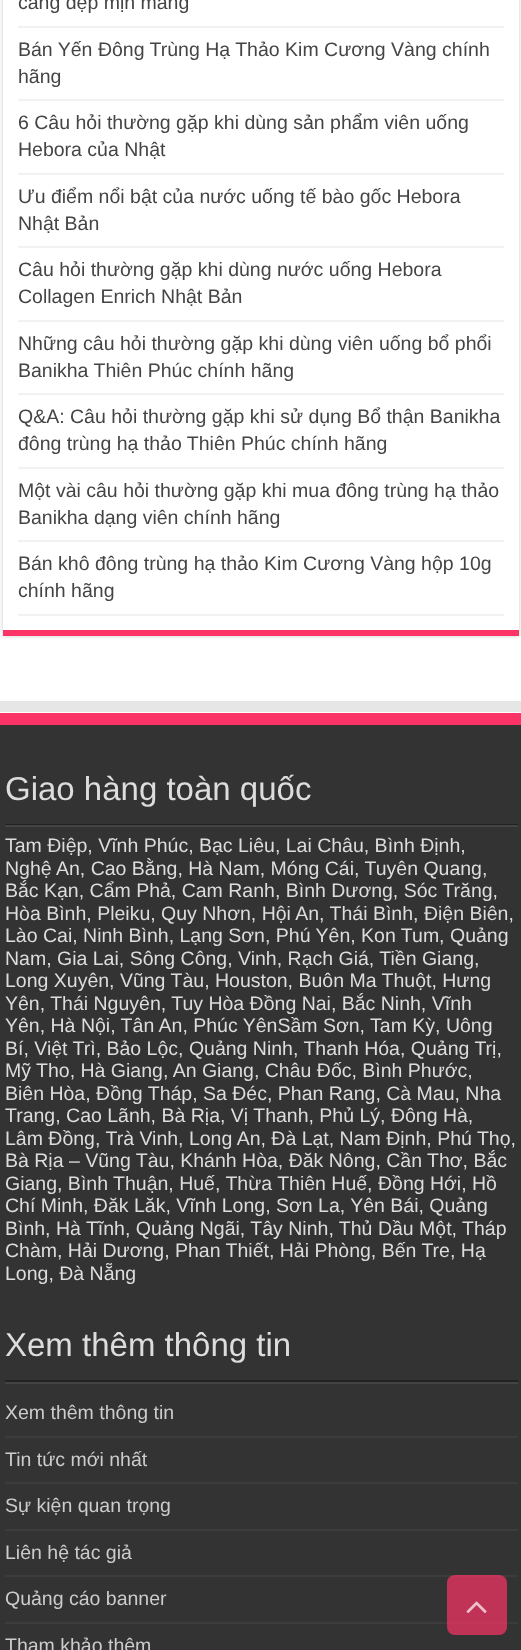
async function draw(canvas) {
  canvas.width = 521;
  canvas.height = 1650;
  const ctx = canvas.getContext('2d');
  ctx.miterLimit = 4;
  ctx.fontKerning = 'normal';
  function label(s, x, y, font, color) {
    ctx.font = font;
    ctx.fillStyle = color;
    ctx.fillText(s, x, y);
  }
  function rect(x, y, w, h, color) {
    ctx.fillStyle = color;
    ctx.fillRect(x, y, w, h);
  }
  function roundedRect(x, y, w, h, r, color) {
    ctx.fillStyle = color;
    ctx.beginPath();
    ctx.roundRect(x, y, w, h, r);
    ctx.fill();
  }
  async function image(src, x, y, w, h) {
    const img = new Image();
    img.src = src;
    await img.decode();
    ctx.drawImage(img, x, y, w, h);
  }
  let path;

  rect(0, 0, 521, 1650, '#fff');
  ctx.save();
  path = new Path2D('M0 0H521V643H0ZM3-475H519V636H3Z');
  ctx.clip(path, 'evenodd');
  ctx.fillStyle = '#cacaca';
  ctx.filter = 'blur(2px)';
  ctx.beginPath();
  ctx.rect(3, -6, 516, 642);
  ctx.fill();
  ctx.filter = 'none';
  ctx.restore();
  rect(3, 630, 516, 6, '#fc3367');
  rect(18, 26, 486, 2, '#f2f2f2');
  label('căng đẹp mịn màng', 18, 9, '19.5px Liberation Sans', '#444');
  rect(18, 99, 486, 2, '#f2f2f2');
  label('Bán Yến Đông Trùng Hạ Thảo Kim Cương Vàng chính', 18, 56, '19.5px Liberation Sans', '#444');
  label('hãng', 18, 83, '19.5px Liberation Sans', '#444');
  rect(18, 173, 486, 2, '#f2f2f2');
  label('6 Câu hỏi thường gặp khi dùng sản phẩm viên uống', 18, 129, '19.5px Liberation Sans', '#444');
  label('Hebora của Nhật', 18, 156, '19.5px Liberation Sans', '#444');
  rect(18, 246, 486, 2, '#f2f2f2');
  label('Ưu điểm nổi bật của nước uống tế bào gốc Hebora', 18, 203, '19.5px Liberation Sans', '#444');
  label('Nhật Bản', 18, 230, '19.5px Liberation Sans', '#444');
  rect(18, 320, 486, 2, '#f2f2f2');
  label('Câu hỏi thường gặp khi dùng nước uống Hebora', 18, 276, '19.5px Liberation Sans', '#444');
  label('Collagen Enrich Nhật Bản', 18, 303, '19.5px Liberation Sans', '#444');
  rect(18, 393, 486, 2, '#f2f2f2');
  label('Những câu hỏi thường gặp khi dùng viên uống bổ phổi', 18, 350, '19.5px Liberation Sans', '#444');
  label('Banikha Thiên Phúc chính hãng', 18, 377, '19.5px Liberation Sans', '#444');
  rect(18, 467, 486, 2, '#f2f2f2');
  label('Q&A: Câu hỏi thường gặp khi sử dụng Bổ thận Banikha', 18, 423, '19.5px Liberation Sans', '#444');
  label('đông trùng hạ thảo Thiên Phúc chính hãng', 18, 450, '19.5px Liberation Sans', '#444');
  rect(18, 540, 486, 2, '#f2f2f2');
  label('Một vài câu hỏi thường gặp khi mua đông trùng hạ thảo', 18, 497, '19.5px Liberation Sans', '#444');
  label('Banikha dạng viên chính hãng', 18, 524, '19.5px Liberation Sans', '#444');
  rect(18, 614, 486, 2, '#f2f2f2');
  label('Bán khô đông trùng hạ thảo Kim Cương Vàng hộp 10g', 18, 570, '19.5px Liberation Sans', '#444');
  label('chính hãng', 18, 597, '19.5px Liberation Sans', '#444');
  rect(0, 701, 521, 11, '#e6e6e6');
  rect(0, 725, 521, 925, '#333');
  rect(0, 713, 521, 12, '#fc3367');
  rect(5, 824, 513, 1, '#222');
  label('Giao hàng toàn quốc', 5, 800, '33px Liberation Sans', '#ddd');
  rect(5, 825, 513, 2, '#444');
  label('Tam Điệp, Vĩnh Phúc, Bạc Liêu, Lai Châu, Bình Định,', 5, 852, '19.5px Liberation Sans', '#ddd');
  label('Nghệ An, Cao Bằng, Hà Nam, Móng Cái, Tuyên Quang,', 5, 875, '19.5px Liberation Sans', '#ddd');
  label('Bắc Kạn, Cẩm Phả, Cam Ranh, Bình Dương, Sóc Trăng,', 5, 897, '19.5px Liberation Sans', '#ddd');
  label('Hòa Bình, Pleiku, Quy Nhơn, Hội An, Thái Bình, Điện Biên,', 5, 920, '19.5px Liberation Sans', '#ddd');
  label('Lào Cai, Ninh Bình, Lạng Sơn, Phú Yên, Kon Tum, Quảng', 5, 942, '19.5px Liberation Sans', '#ddd');
  label('Nam, Gia Lai, Sông Công, Vinh, Rạch Giá, Tiền Giang,', 5, 965, '19.5px Liberation Sans', '#ddd');
  label('Long Xuyên, Vũng Tàu, Houston, Buôn Ma Thuột, Hưng', 5, 987, '19.5px Liberation Sans', '#ddd');
  label('Yên, Thái Nguyên, Tuy Hòa Đồng Nai, Bắc Ninh, Vĩnh', 5, 1010, '19.5px Liberation Sans', '#ddd');
  label('Yên, Hà Nội, Tân An, Phúc YênSầm Sơn, Tam Kỳ, Uông', 5, 1032, '19.5px Liberation Sans', '#ddd');
  label('Bí, Việt Trì, Bảo Lộc, Quảng Ninh, Thanh Hóa, Quảng Trị,', 5, 1055, '19.5px Liberation Sans', '#ddd');
  label('Mỹ Tho, Hà Giang, An Giang, Châu Đốc, Bình Phước,', 5, 1077, '19.5px Liberation Sans', '#ddd');
  label('Biên Hòa, Đồng Tháp, Sa Đéc, Phan Rang, Cà Mau, Nha', 5, 1100, '19.5px Liberation Sans', '#ddd');
  label('Trang, Cao Lãnh, Bà Rịa, Vị Thanh, Phủ Lý, Đông Hà,', 5, 1122, '19.5px Liberation Sans', '#ddd');
  label('Lâm Đồng, Trà Vinh, Long An, Đà Lạt, Nam Định, Phú Thọ,', 5, 1145, '19.5px Liberation Sans', '#ddd');
  label('Bà Rịa – Vũng Tàu, Khánh Hòa, Đăk Nông, Cần Thơ, Bắc', 5, 1167, '19.5px Liberation Sans', '#ddd');
  label('Giang, Bình Thuận, Huế, Thừa Thiên Huế, Đồng Hới, Hồ', 5, 1190, '19.5px Liberation Sans', '#ddd');
  label('Chí Minh, Đăk Lăk, Vĩnh Long, Sơn La, Yên Bái, Quảng', 5, 1212, '19.5px Liberation Sans', '#ddd');
  label('Bình, Hà Tĩnh, Quảng Ngãi, Tây Ninh, Thủ Dầu Một, Tháp', 5, 1235, '19.5px Liberation Sans', '#ddd');
  label('Chàm, Hải Dương, Phan Thiết, Hải Phòng, Bến Tre, Hạ', 5, 1257, '19.5px Liberation Sans', '#ddd');
  label('Long, Đà Nẵng', 5, 1280, '19.5px Liberation Sans', '#ddd');
  rect(5, 1380, 513, 2, '#222');
  label('Xem thêm thông tin', 5, 1356, '33px Liberation Sans', '#ddd');
  rect(5, 1382, 513, 2, '#444');
  rect(5, 1436, 513, 2, '#3c3c3c');
  label('Xem thêm thông tin', 5, 1419, '19.5px Liberation Sans', '#ccc');
  rect(5, 1482, 513, 2, '#3c3c3c');
  label('Tin tức mới nhất', 5, 1466, '19.5px Liberation Sans', '#ccc');
  rect(5, 1529, 513, 2, '#3c3c3c');
  label('Sự kiện quan trọng', 5, 1512, '19.5px Liberation Sans', '#ccc');
  rect(5, 1575, 513, 2, '#3c3c3c');
  label('Liên hệ tác giả', 5, 1559, '19.5px Liberation Sans', '#ccc');
  rect(5, 1622, 513, 2, '#3c3c3c');
  label('Quảng cáo banner', 5, 1605, '19.5px Liberation Sans', '#ccc');
  label('Tham khảo thêm', 5, 1652, '19.5px Liberation Sans', '#ccc');
  roundedRect(447, 1575, 60, 60, 8, '#fc3367b3');
  await image('assets/img1.png', 466, 1601, 21, 12);
}

draw(document.querySelector('canvas'));
